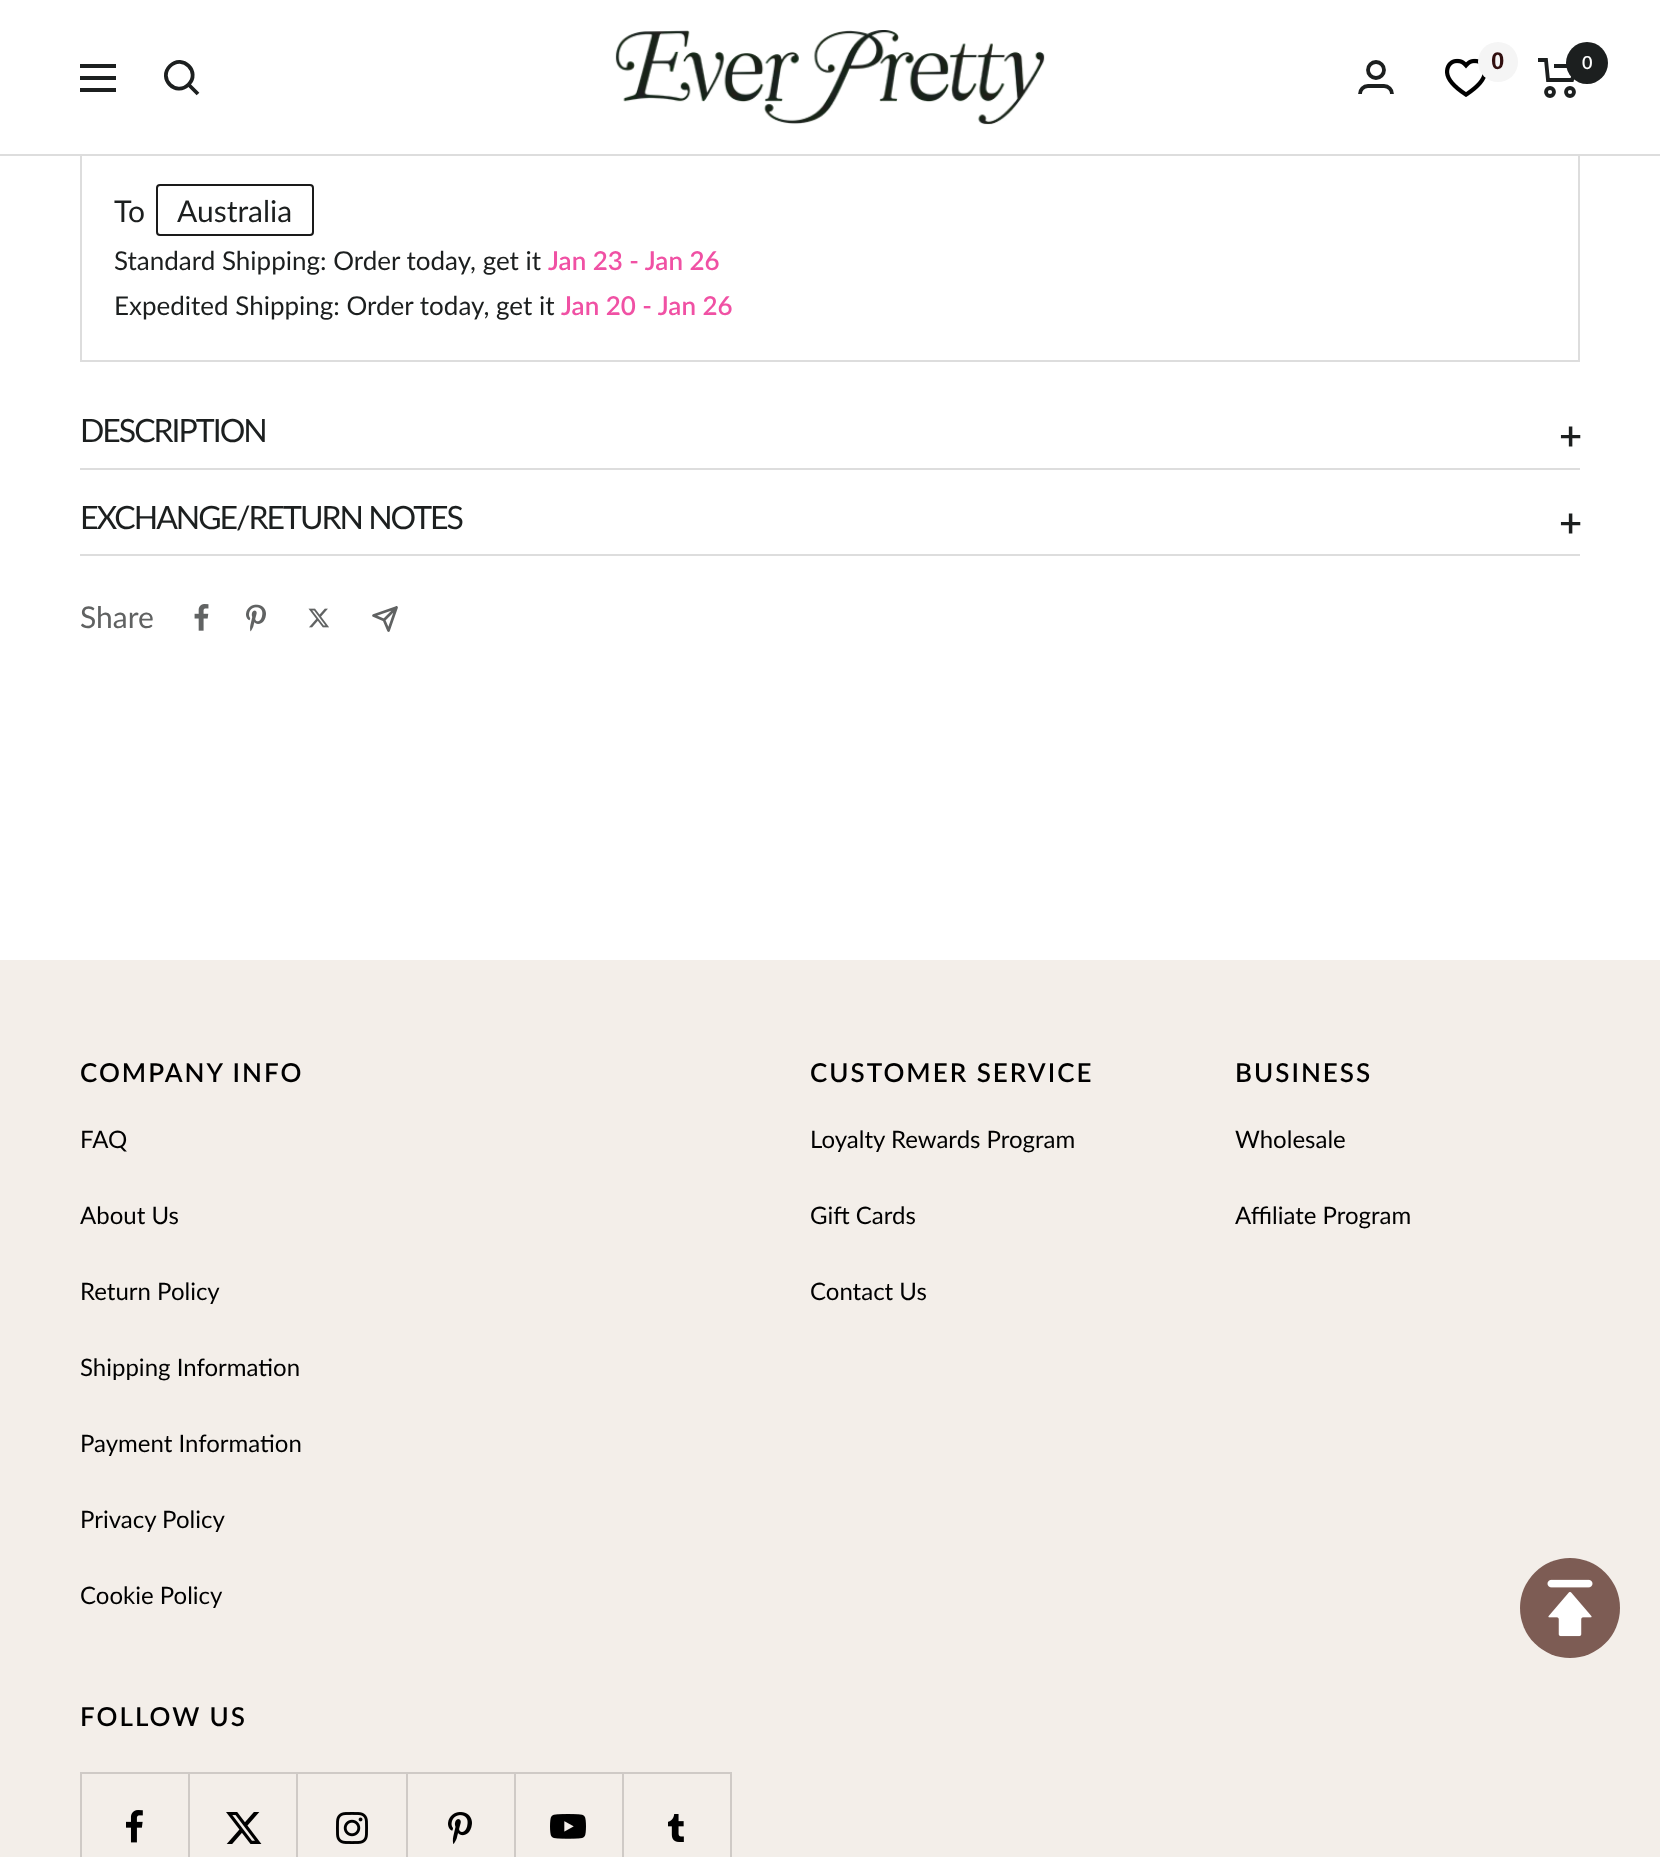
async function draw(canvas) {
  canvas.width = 1660;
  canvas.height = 1857;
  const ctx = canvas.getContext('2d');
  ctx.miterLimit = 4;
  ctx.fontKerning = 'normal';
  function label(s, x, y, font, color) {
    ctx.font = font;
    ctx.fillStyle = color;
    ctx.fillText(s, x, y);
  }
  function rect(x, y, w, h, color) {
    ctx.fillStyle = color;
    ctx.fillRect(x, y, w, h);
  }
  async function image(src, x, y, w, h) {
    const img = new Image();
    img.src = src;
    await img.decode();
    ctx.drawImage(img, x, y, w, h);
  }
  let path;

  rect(0, 0, 1660, 1857, '#fff');
  ctx.strokeStyle = '#ddd';
  ctx.lineWidth = 2;
  ctx.strokeRect(81, 153, 1498, 208);
  rect(0, 154, 1660, 2, '#ddd');
  rect(80, 152, 1500, 2, '#fff');
  path = new Path2D('M80 66H116M80 90H116ZM80 78H116Z');
  ctx.strokeStyle = '#1c1f1f';
  ctx.lineWidth = 3.8;
  ctx.stroke(path);
  path = new Path2D('M188.5 84.5C201 72 182.5 53.5 170 66C157.5 78.5 176 97 188.5 84.5ZM188.5 84.5L198 94');
  ctx.stroke(path);
  await image('assets/img1.png', 615, 30, 430, 95);
  ctx.beginPath();
  ctx.arc(1376, 70, 8, 0, 2 * Math.PI);
  ctx.stroke();
  path = new Path2D('M1360 94C1360 89.5 1363.5 86 1368 86H1384C1388.5 86 1392 89.5 1392 94');
  ctx.stroke(path);
  await image('assets/img2.png', 1445, 58, 41, 39);
  ctx.fillStyle = '#f5f5f5';
  ctx.beginPath();
  ctx.arc(1498, 62, 20, 0, 2 * Math.PI);
  ctx.fill();
  label('0', 1491, 69, 'bold 24px Liberation Sans', '#310f0f');
  path = new Path2D('M1538 60H1546L1548 80H1572L1576 66H1554');
  ctx.stroke(path);
  ctx.beginPath();
  ctx.arc(1550, 92, 4, 0, 2 * Math.PI);
  ctx.stroke();
  ctx.beginPath();
  ctx.arc(1570, 92, 4, 0, 2 * Math.PI);
  ctx.stroke();
  ctx.fillStyle = '#1c1f1f';
  ctx.beginPath();
  ctx.arc(1587, 63, 21, 0, 2 * Math.PI);
  ctx.fill();
  label('0', 1582, 69, '600 18px Lato', '#fff');
  label('To', 114, 222, '30px Lato', '#1c1f1f');
  ctx.beginPath();
  ctx.roundRect(157, 185, 156, 50, 3);
  ctx.strokeStyle = '#1a1a1a';
  ctx.lineWidth = 2;
  ctx.stroke();
  label('Australia', 177, 222, '30px Lato', '#1c1f1f');
  label('Standard Shipping: Order today, get it', 114, 270, '26px Lato', '#1c1f1f');
  label('Jan 23 - Jan 26', 548, 270, '600 26px Lato', '#f051a4');
  label('Expedited Shipping: Order today, get it', 114, 315, '26px Lato', '#1c1f1f');
  label('Jan 20 - Jan 26', 561, 315, '600 26px Lato', '#f051a4');
  rect(80, 468, 1500, 2, '#ddd');
  ctx.letterSpacing = '-2px';
  label('DESCRIPTION', 80, 442, '32px Lato', '#1c1f1f');
  label('+', 1559, 450, '600 40px Lato', '#1c1f1f');
  rect(80, 554, 1500, 2, '#ddd');
  label('EXCHANGE/RETURN NOTES', 80, 529, '32px Lato', '#1c1f1f');
  label('+', 1559, 537, '600 40px Lato', '#1c1f1f');
  ctx.letterSpacing = '0px';
  label('Share', 80, 628, '30px Lato', '#606262');
  await image('assets/img3.png', 194, 604, 15, 27);
  await image('assets/img4.png', 246, 604, 20, 28);
  await image('assets/img5.png', 308, 608, 21, 20);
  path = new Path2D('M396.5 607.5L388.5 630.5L384 620M396.5 607.5L373.5 615.5L384 620M396.5 607.5L384 620');
  ctx.strokeStyle = '#606262';
  ctx.lineWidth = 2.7;
  ctx.lineCap = 'round';
  ctx.lineJoin = 'round';
  ctx.stroke(path);
  rect(0, 960, 1660, 897, '#f3eee9');
  ctx.letterSpacing = '2px';
  label('COMPANY INFO', 80, 1082, '600 26px Lato', '#000');
  ctx.letterSpacing = '0px';
  label('FAQ', 80, 1148, '24px Lato', '#000');
  label('About Us', 80, 1224, '24px Lato', '#000');
  label('Return Policy', 80, 1300, '24px Lato', '#000');
  label('Shipping Information', 80, 1376, '24px Lato', '#000');
  label('Payment Information', 80, 1452, '24px Lato', '#000');
  label('Privacy Policy', 80, 1528, '24px Lato', '#000');
  label('Cookie Policy', 80, 1604, '24px Lato', '#000');
  ctx.letterSpacing = '2px';
  label('CUSTOMER SERVICE', 810, 1082, '600 26px Lato', '#000');
  ctx.letterSpacing = '0px';
  label('Loyalty Rewards Program', 810, 1148, '24px Lato', '#000');
  label('Gift Cards', 810, 1224, '24px Lato', '#000');
  label('Contact Us', 810, 1300, '24px Lato', '#000');
  ctx.letterSpacing = '2px';
  label('BUSINESS', 1235, 1082, '600 26px Lato', '#000');
  ctx.letterSpacing = '0px';
  label('Wholesale', 1235, 1148, '24px Lato', '#000');
  label('Affiliate Program', 1235, 1224, '24px Lato', '#000');
  ctx.letterSpacing = '2px';
  label('FOLLOW US', 80, 1726, '600 26px Lato', '#000');
  rect(188, 1772, 2, 85, '#cfcac6');
  rect(80, 1772, 216, 2, '#cfcac6');
  rect(80, 1772, 2, 85, '#cfcac6');
  await image('assets/img6.png', 126, 1810, 17, 33);
  rect(296, 1772, 2, 85, '#cfcac6');
  await image('assets/img7.png', 226, 1812, 36, 32);
  rect(406, 1772, 2, 85, '#cfcac6');
  rect(296, 1772, 218, 2, '#cfcac6');
  await image('assets/img8.png', 336, 1812, 32, 32);
  rect(514, 1772, 2, 85, '#cfcac6');
  await image('assets/img9.png', 448, 1812, 24, 32);
  rect(622, 1772, 2, 85, '#cfcac6');
  rect(514, 1772, 216, 2, '#cfcac6');
  await image('assets/img10.png', 550, 1814, 36, 25);
  rect(730, 1772, 2, 85, '#cfcac6');
  await image('assets/img11.png', 668, 1814, 16, 28);
  ctx.fillStyle = '#7d5c54';
  ctx.beginPath();
  ctx.arc(1570, 1608, 50, 0, 2 * Math.PI);
  ctx.fill();
  await image('assets/img12.png', 1547, 1579, 46, 58);
}

draw(document.querySelector('canvas'));
